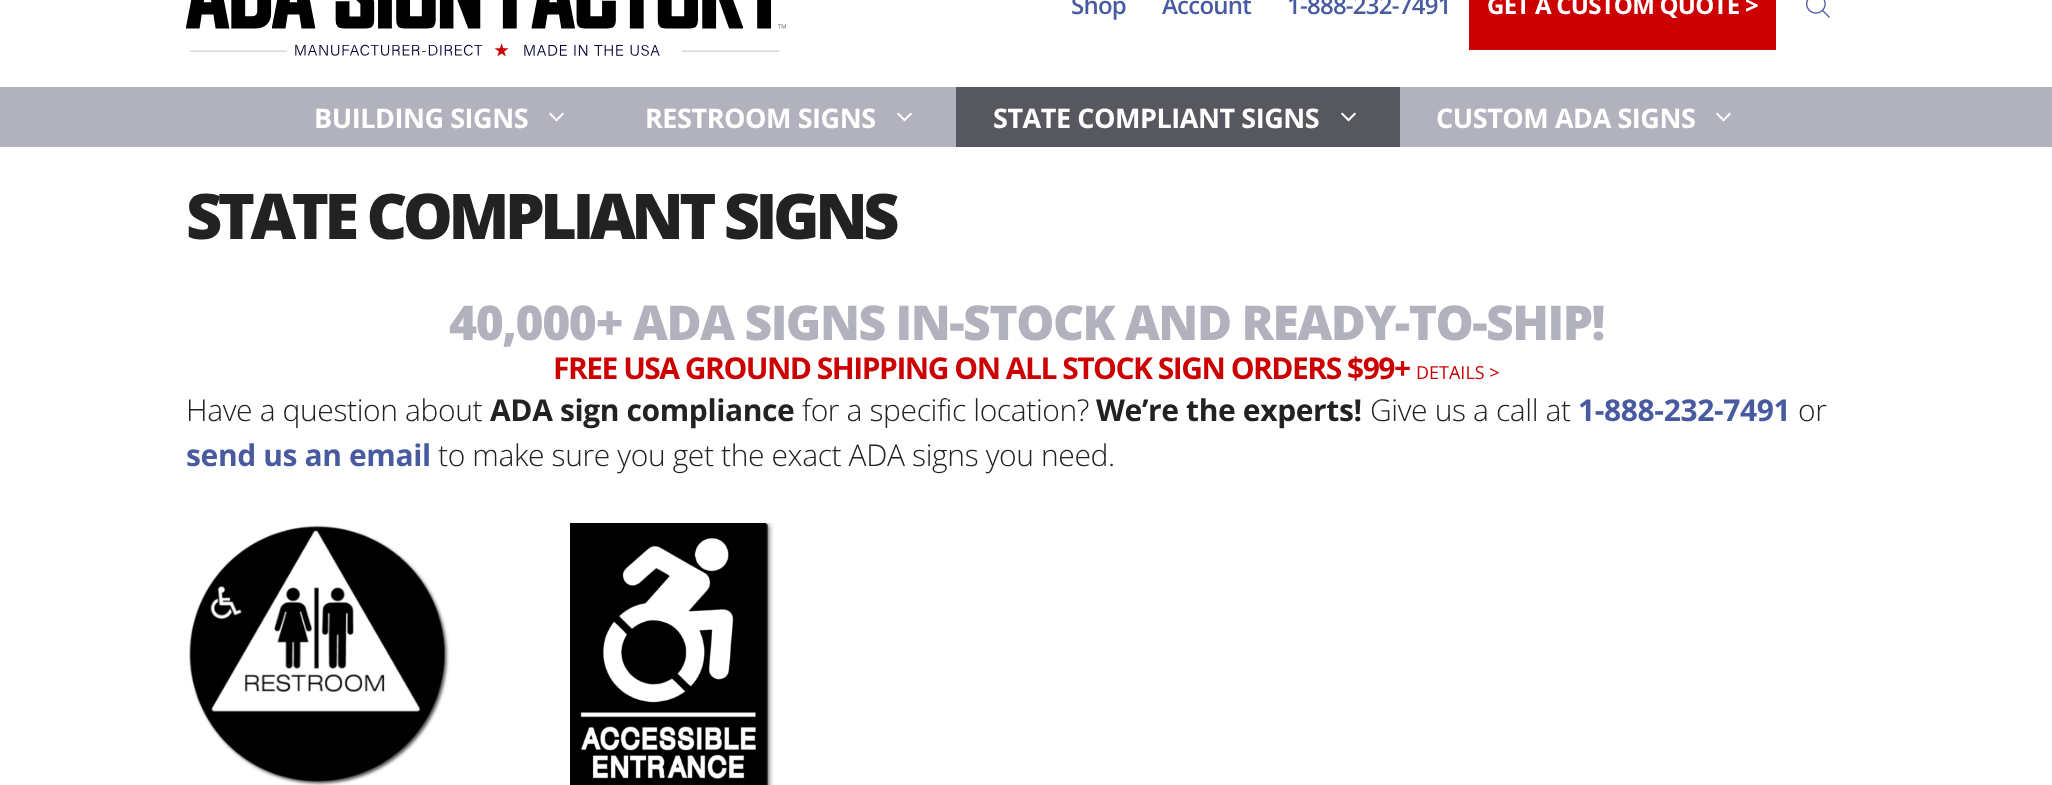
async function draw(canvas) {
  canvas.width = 2052;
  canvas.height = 785;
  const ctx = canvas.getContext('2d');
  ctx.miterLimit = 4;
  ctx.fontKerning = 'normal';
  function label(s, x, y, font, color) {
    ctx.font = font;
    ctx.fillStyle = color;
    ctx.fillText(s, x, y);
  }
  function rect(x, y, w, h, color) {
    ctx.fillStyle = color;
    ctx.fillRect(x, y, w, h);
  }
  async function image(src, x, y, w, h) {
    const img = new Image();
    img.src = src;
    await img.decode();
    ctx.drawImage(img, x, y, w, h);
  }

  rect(0, 0, 2052, 785, '#fff');
  await image('assets/img1.png', 186, 0, 600, 57);
  ctx.letterSpacing = '-0.75px';
  label('Shop', 1071, 14, '600 24px Open Sans', '#495ba0');
  label('Account', 1162, 14, '600 24px Open Sans', '#495ba0');
  label('1-888-232-7491', 1287, 14, '600 24px Open Sans', '#495ba0');
  rect(1469, 0, 307, 50, '#c00');
  label('GET A CUSTOM QUOTE >', 1487, 14, 'bold 24px Open Sans', '#fff');
  await image('assets/img2.png', 1806, 0, 24, 18);
  rect(0, 87, 2052, 60, '#b2b2be');
  ctx.letterSpacing = '-0.45px';
  label('BUILDING SIGNS', 314, 128, 'bold 27px Open Sans', '#fff');
  await image('assets/img3.png', 549, 112, 15, 10);
  label('RESTROOM SIGNS', 645, 128, 'bold 27px Open Sans', '#fff');
  await image('assets/img3.png', 897, 112, 15, 10);
  rect(956, 87, 444, 60, '#575760');
  label('STATE COMPLIANT SIGNS', 993, 128, 'bold 27px Open Sans', '#fff');
  await image('assets/img4.png', 1341, 112, 15, 10);
  label('CUSTOM ADA SIGNS', 1436, 128, 'bold 27px Open Sans', '#fff');
  await image('assets/img3.png', 1716, 112, 15, 10);
  ctx.letterSpacing = '-4.5px';
  label('STATE COMPLIANT SIGNS', 186, 239, '800 63px Open Sans', '#222');
  ctx.letterSpacing = '-1.5px';
  label('40,000+ ADA SIGNS IN-STOCK AND READY-TO-SHIP!', 449, 340, '800 48px Open Sans', '#b2b2be');
  label('FREE USA GROUND SHIPPING ON ALL STOCK SIGN ORDERS $99+', 553, 379, 'bold 30px Open Sans', '#c00');
  ctx.letterSpacing = '0px';
  label('DETAILS >', 1416, 379, '18px Open Sans', '#c00');
  ctx.letterSpacing = '-0.38px';
  label('Have a question about', 186, 421, '300 30px Open Sans', '#222');
  label('ADA sign compliance', 490, 421, 'bold 30px Open Sans', '#222');
  label('for a specific location?', 802, 421, '300 30px Open Sans', '#222');
  label('We’re the experts!', 1096, 421, 'bold 30px Open Sans', '#222');
  label('Give us a call at', 1370, 421, '300 30px Open Sans', '#222');
  label('1-888-232-7491', 1578, 421, 'bold 30px Open Sans', '#495ba0');
  label('or', 1798, 421, '300 30px Open Sans', '#222');
  label('send us an email', 186, 466, 'bold 30px Open Sans', '#495ba0');
  label('to make sure you get the exact ADA signs you need.', 438, 466, '300 30px Open Sans', '#222');
  await image('assets/img5.png', 189, 525, 261, 260);
  await image('assets/img6.png', 570, 523, 204, 262);
}

draw(document.querySelector('canvas'));
